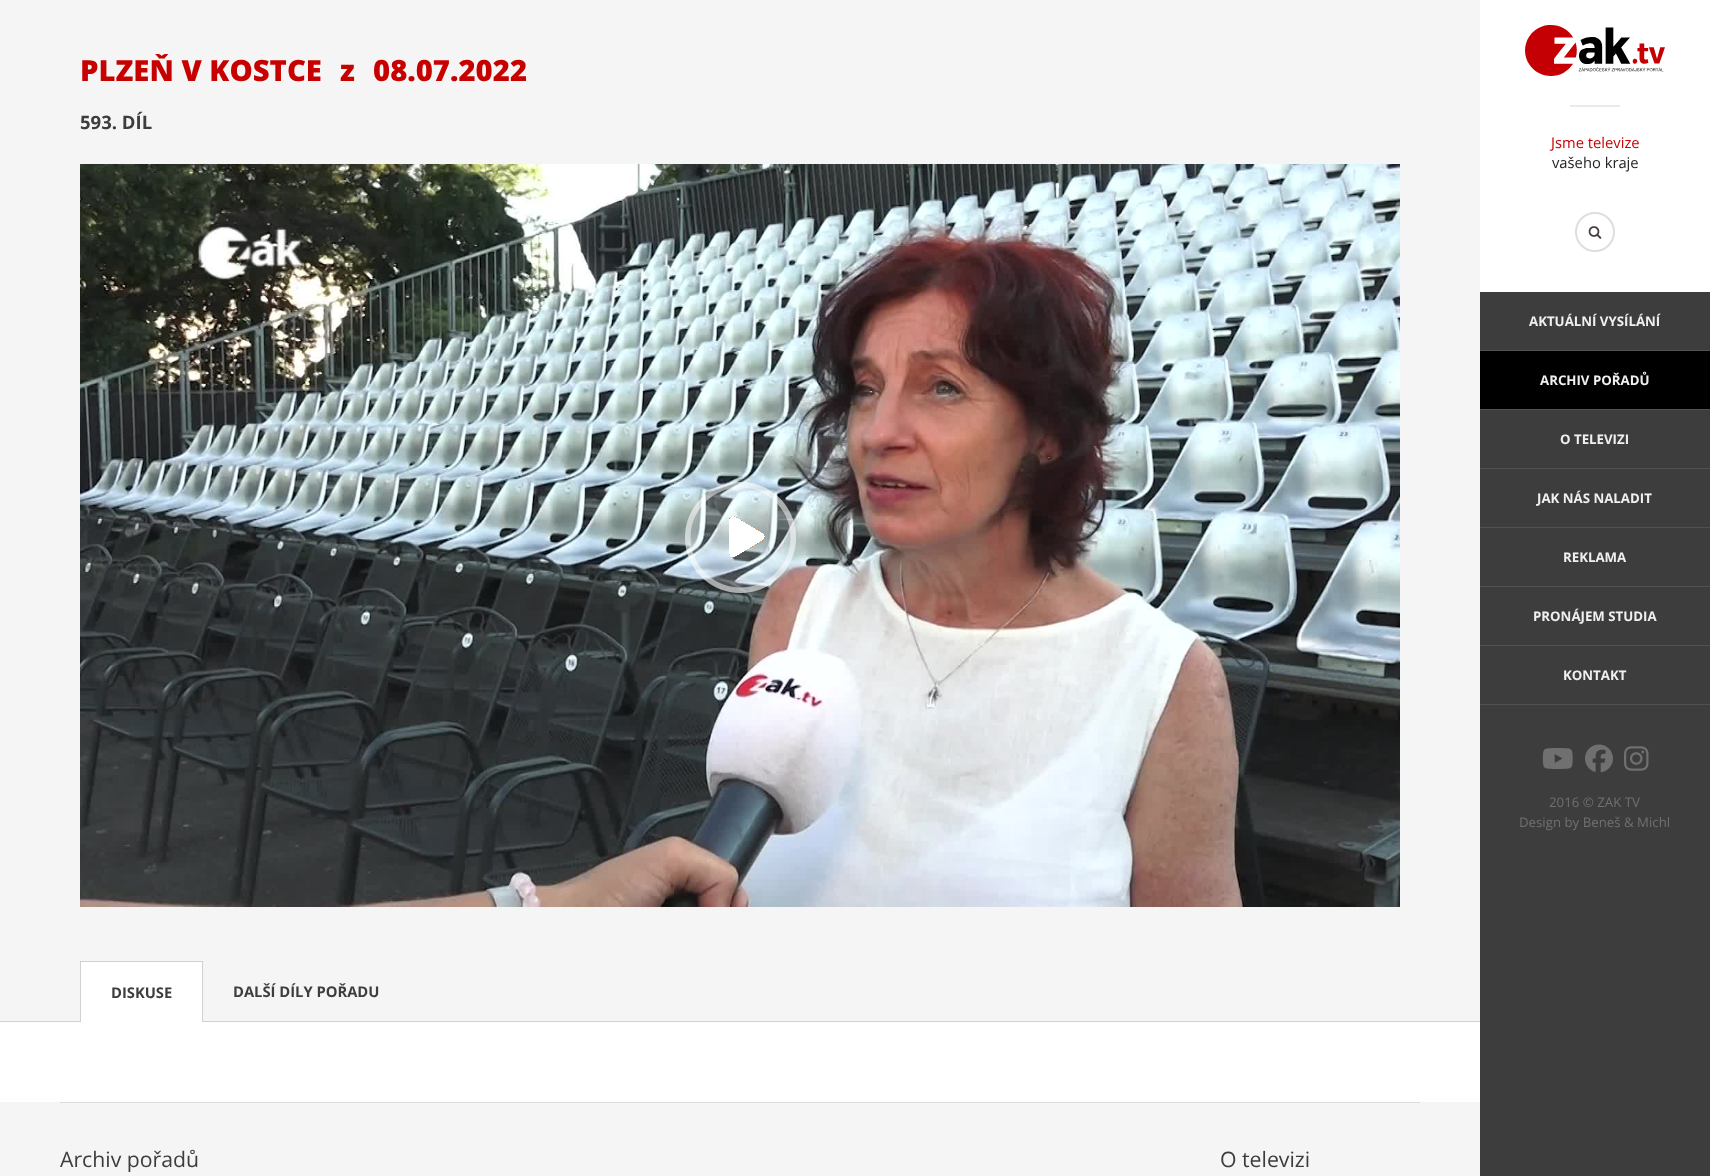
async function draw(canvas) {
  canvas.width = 1710;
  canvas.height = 1176;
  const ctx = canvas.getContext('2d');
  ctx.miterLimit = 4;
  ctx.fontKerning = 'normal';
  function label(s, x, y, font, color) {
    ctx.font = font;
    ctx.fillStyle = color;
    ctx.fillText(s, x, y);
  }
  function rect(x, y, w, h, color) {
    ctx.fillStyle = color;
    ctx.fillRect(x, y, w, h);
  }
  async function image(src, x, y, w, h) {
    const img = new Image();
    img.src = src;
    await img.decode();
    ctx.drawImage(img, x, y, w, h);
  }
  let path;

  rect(0, 0, 1710, 1176, '#3d3d3d');
  rect(1480, 351, 230, 58, '#000');
  path = new Path2D('M1483 371V387L1471 379Z');
  ctx.fill(path);
  rect(0, 0, 1480, 1176, '#f5f5f5');
  label('PLZEŇ V KOSTCE', 80, 81, '800 29.25px Open Sans', '#c70000');
  label('z', 340, 81, '800 29.25px Open Sans', '#c70000');
  label('08.07.2022', 373, 81, '800 29.25px Open Sans', '#c70000');
  label('593. DÍL', 80, 129, 'bold 18.5px Open Sans', '#3d3d3d');
  await image('assets/img1.png', 80, 164, 1320, 743);
  await image('assets/img2.png', 685, 482, 111, 111);
  rect(0, 1021, 1480, 1, '#d1d1d1');
  rect(81, 962, 121, 60, '#fff');
  rect(80, 961, 123, 1, '#d1d1d1');
  rect(202, 961, 1, 61, '#d1d1d1');
  rect(80, 961, 1, 61, '#d1d1d1');
  label('DISKUSE', 111, 998, 'bold 14.75px Open Sans', '#3d3d3d');
  label('DALŠÍ DÍLY POŘADU', 233, 997, 'bold 14.75px Open Sans', '#3d3d3d');
  rect(0, 1022, 1480, 80, '#fff');
  rect(60, 1102, 1360, 1, '#dcdcdc');
  label('Archiv pořadů', 60, 1167, '21.25px Open Sans', '#3d3d3d');
  label('O televizi', 1220, 1167, '21.25px Open Sans', '#3d3d3d');
  rect(1480, 0, 230, 292, '#fff');
  await image('assets/img3.png', 1525, 25, 140, 51);
  rect(1570, 105, 50, 2, '#ebebeb');
  label('Jsme televize', 1551, 148, '14.75px Open Sans', '#c70000');
  label('vašeho kraje', 1552, 168, '14.75px Open Sans', '#232323');
  await image('assets/img4.png', 1588, 226, 14, 13);
  ctx.beginPath();
  ctx.arc(1595, 232, 19, 0, 2 * Math.PI);
  ctx.strokeStyle = '#dedede';
  ctx.lineWidth = 2;
  ctx.stroke();
  rect(1480, 350, 230, 1, '#515151');
  label('AKTUÁLNÍ VYSÍLÁNÍ', 1529, 326, 'bold 13.25px Open Sans', '#f0f0f0');
  rect(1480, 409, 230, 1, '#515151');
  label('ARCHIV POŘADŮ', 1540, 385, 'bold 13.25px Open Sans', '#f0f0f0');
  rect(1480, 468, 230, 1, '#515151');
  label('O TELEVIZI', 1560, 444, 'bold 13.25px Open Sans', '#f0f0f0');
  rect(1480, 527, 230, 1, '#515151');
  label('JAK NÁS NALADIT', 1537, 503, 'bold 13.25px Open Sans', '#f0f0f0');
  rect(1480, 586, 230, 1, '#515151');
  label('REKLAMA', 1563, 562, 'bold 13.25px Open Sans', '#f0f0f0');
  rect(1480, 645, 230, 1, '#515151');
  label('PRONÁJEM STUDIA', 1533, 621, 'bold 13.25px Open Sans', '#f0f0f0');
  rect(1480, 704, 230, 1, '#515151');
  label('KONTAKT', 1563, 680, 'bold 13.25px Open Sans', '#f0f0f0');
  await image('assets/img5.png', 1542, 748, 31, 21);
  await image('assets/img6.png', 1585, 744, 28, 29);
  await image('assets/img7.png', 1624, 746, 25, 25);
  label('2016 © ZAK TV', 1549, 807, '13.25px Open Sans', '#707070');
  label('Design by Beneš & Michl', 1519, 827, '13.25px Open Sans', '#707070');
}

draw(document.querySelector('canvas'));
